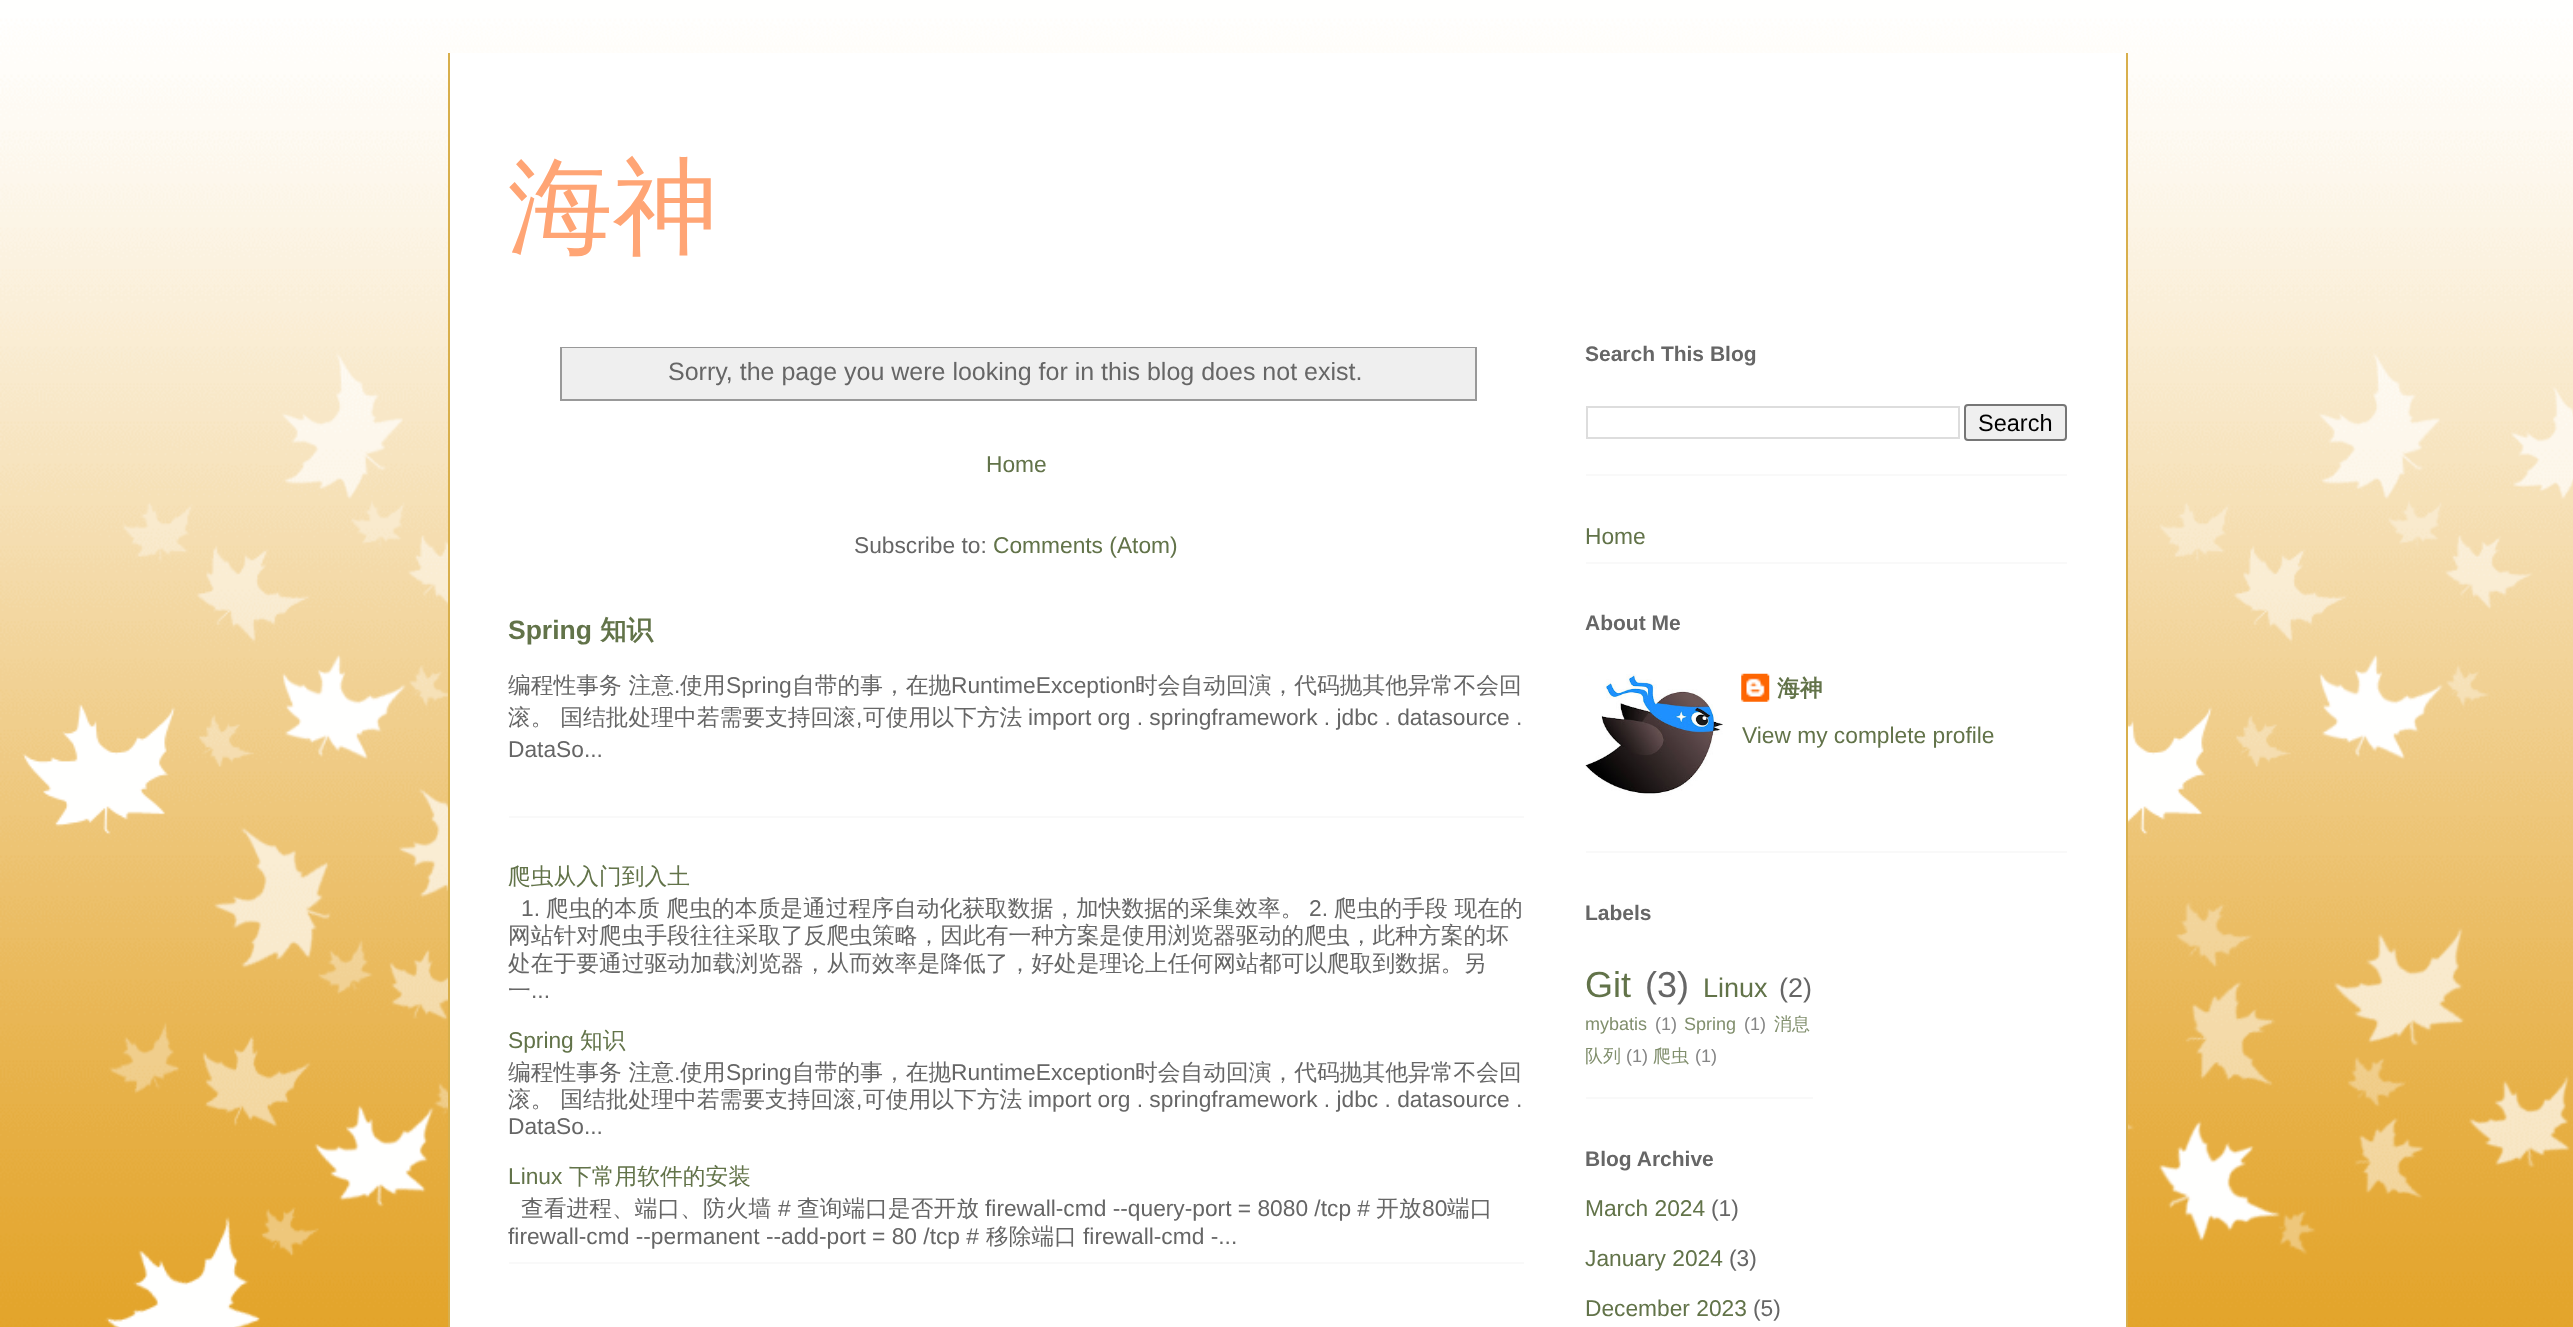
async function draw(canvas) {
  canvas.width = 2573;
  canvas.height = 1327;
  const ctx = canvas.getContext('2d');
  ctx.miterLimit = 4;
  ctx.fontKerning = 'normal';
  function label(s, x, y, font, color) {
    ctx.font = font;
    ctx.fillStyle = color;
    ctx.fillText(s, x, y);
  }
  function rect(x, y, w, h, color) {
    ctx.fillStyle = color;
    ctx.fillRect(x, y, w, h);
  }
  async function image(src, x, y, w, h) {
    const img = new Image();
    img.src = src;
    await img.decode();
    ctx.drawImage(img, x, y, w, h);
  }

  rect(0, 0, 2573, 1327, '#e3a327');
  await image('assets/img1.png', 0, 0, 2573, 1327);
  rect(450, 53, 1676, 1274, '#fff');
  rect(2126, 53, 2, 1274, '#d8af4c');
  rect(448, 53, 2, 1274, '#d8af4c');
  label('海神', 508, 243, '500 105px WenQuanYi Zen Hei', '#ffa575');
  ctx.strokeStyle = '#999';
  ctx.lineWidth = 2;
  ctx.strokeRect(561, 348, 915, 52);
  rect(562, 348, 913, 51, '#efefef');
  label('Sorry, the page you were looking for in this blog does not exist.', 668, 380, '25px Liberation Sans', '#666');
  label('Home', 986, 472, '22.75px Liberation Sans', '#627349');
  label('Subscribe to:', 854, 553, '22.75px Liberation Sans', '#666');
  label('Comments (Atom)', 993, 553, '22.75px Liberation Sans', '#627349');
  rect(509, 816, 1015, 2, '#f9f9f9');
  label('Spring', 508, 639, 'bold 26.5px Liberation Sans', '#627349');
  label('知识', 600, 639, 'bold 26.5px WenQuanYi Zen Hei', '#627349');
  label('编程性事务 注意', 508, 693, '500 22.75px WenQuanYi Zen Hei', '#666');
  label('.', 674, 693, '22.75px Liberation Sans', '#666');
  label('使用', 680, 693, '500 22.75px WenQuanYi Zen Hei', '#666');
  label('Spring', 726, 693, '22.75px Liberation Sans', '#666');
  label('自带的事，在抛', 792, 693, '500 22.75px WenQuanYi Zen Hei', '#666');
  label('RuntimeException', 951, 693, '22.75px Liberation Sans', '#666');
  label('时会自动回演，代码抛其他异常不会回', 1135, 693, '500 22.75px WenQuanYi Zen Hei', '#666');
  label('滚。 国结批处理中若需要支持回滚', 508, 725, '500 22.75px WenQuanYi Zen Hei', '#666');
  label(',', 856, 725, '22.75px Liberation Sans', '#666');
  label('可使用以下方法', 863, 725, '500 22.75px WenQuanYi Zen Hei', '#666');
  label('import org . springframework . jdbc . datasource .', 1028, 725, '22.75px Liberation Sans', '#666');
  label('DataSo...', 508, 757, '22.75px Liberation Sans', '#666');
  rect(509, 1262, 1015, 2, '#f9f9f9');
  label('爬虫从入门到入土', 508, 884, '500 22.75px WenQuanYi Zen Hei', '#627349');
  label('1.', 521, 916, '22.75px Liberation Sans', '#666');
  label('爬虫的本质 爬虫的本质是通过程序自动化获取数据，加快数据的采集效率。', 546, 916, '500 22.75px WenQuanYi Zen Hei', '#666');
  label('2.', 1309, 916, '22.75px Liberation Sans', '#666');
  label('爬虫的手段 现在的', 1334, 916, '500 22.75px WenQuanYi Zen Hei', '#666');
  label('网站针对爬虫手段往往采取了反爬虫策略，因此有一种方案是使用浏览器驱动的爬虫，此种方案的坏', 508, 943, '500 22.75px WenQuanYi Zen Hei', '#666');
  label('处在于要通过驱动加载浏览器，从而效率是降低了，好处是理论上任何网站都可以爬取到数据。另', 508, 971, '500 22.75px WenQuanYi Zen Hei', '#666');
  label('一', 508, 998, '500 22.75px WenQuanYi Zen Hei', '#666');
  label('...', 531, 998, '22.75px Liberation Sans', '#666');
  label('Spring', 508, 1048, '22.75px Liberation Sans', '#627349');
  label('知识', 580, 1048, '500 22.75px WenQuanYi Zen Hei', '#627349');
  label('编程性事务 注意', 508, 1080, '500 22.75px WenQuanYi Zen Hei', '#666');
  label('.', 674, 1080, '22.75px Liberation Sans', '#666');
  label('使用', 680, 1080, '500 22.75px WenQuanYi Zen Hei', '#666');
  label('Spring', 726, 1080, '22.75px Liberation Sans', '#666');
  label('自带的事，在抛', 792, 1080, '500 22.75px WenQuanYi Zen Hei', '#666');
  label('RuntimeException', 951, 1080, '22.75px Liberation Sans', '#666');
  label('时会自动回演，代码抛其他异常不会回', 1135, 1080, '500 22.75px WenQuanYi Zen Hei', '#666');
  label('滚。 国结批处理中若需要支持回滚', 508, 1107, '500 22.75px WenQuanYi Zen Hei', '#666');
  label(',', 856, 1107, '22.75px Liberation Sans', '#666');
  label('可使用以下方法', 863, 1107, '500 22.75px WenQuanYi Zen Hei', '#666');
  label('import org . springframework . jdbc . datasource .', 1028, 1107, '22.75px Liberation Sans', '#666');
  label('DataSo...', 508, 1134, '22.75px Liberation Sans', '#666');
  label('Linux', 508, 1184, '22.75px Liberation Sans', '#627349');
  label('下常用软件的安装', 569, 1184, '500 22.75px WenQuanYi Zen Hei', '#627349');
  label('查看进程、端口、防火墙', 521, 1216, '500 22.75px WenQuanYi Zen Hei', '#666');
  label('#', 778, 1216, '22.75px Liberation Sans', '#666');
  label('查询端口是否开放', 797, 1216, '500 22.75px WenQuanYi Zen Hei', '#666');
  label('firewall-cmd --query-port = 8080 /tcp #', 985, 1216, '22.75px Liberation Sans', '#666');
  label('开放', 1376, 1216, '500 22.75px WenQuanYi Zen Hei', '#666');
  label('80', 1422, 1216, '22.75px Liberation Sans', '#666');
  label('端口', 1447, 1216, '500 22.75px WenQuanYi Zen Hei', '#666');
  label('firewall-cmd --permanent --add-port = 80 /tcp #', 508, 1244, '22.75px Liberation Sans', '#666');
  label('移除端口', 986, 1244, '500 22.75px WenQuanYi Zen Hei', '#666');
  label('firewall-cmd -...', 1083, 1244, '22.75px Liberation Sans', '#666');
  rect(1586, 474, 481, 2, '#f9f9f9');
  label('Search This Blog', 1585, 361, 'bold 21px Liberation Sans', '#666');
  ctx.strokeStyle = '#ddd';
  ctx.strokeRect(1587, 407, 372, 31);
  ctx.fillStyle = '#efefef';
  ctx.beginPath();
  ctx.roundRect(1965, 405, 101, 35, 3);
  ctx.fill();
  ctx.strokeStyle = '#767676';
  ctx.stroke();
  label('Search', 1978, 431, '23.5px Liberation Sans', '#000');
  rect(1586, 562, 481, 2, '#f9f9f9');
  label('Home', 1585, 544, '22.75px Liberation Sans', '#627349');
  rect(1586, 851, 481, 2, '#f9f9f9');
  label('About Me', 1585, 630, 'bold 21px Liberation Sans', '#666');
  await image('assets/img2.png', 1585, 674, 138, 122);
  await image('assets/img3.png', 1741, 673, 29, 29);
  label('海神', 1777, 696, 'bold 22.75px WenQuanYi Zen Hei', '#627349');
  label('View my complete profile', 1742, 743, '22.75px Liberation Sans', '#627349');
  rect(1586, 1097, 227, 2, '#f9f9f9');
  label('Labels', 1585, 920, 'bold 21px Liberation Sans', '#666');
  label('Git', 1585, 997, '36px Liberation Sans', '#627349');
  label('(3)', 1645, 997, '36px Liberation Sans', '#666');
  label('Linux', 1703, 997, '27px Liberation Sans', '#627349');
  label('(2)', 1779, 997, '27px Liberation Sans', '#666');
  label('mybatis', 1585, 1030, '18px Liberation Sans', '#818f6d');
  label('(1)', 1655, 1030, '18px Liberation Sans', '#858585');
  label('Spring', 1684, 1030, '18px Liberation Sans', '#818f6d');
  label('(1)', 1744, 1030, '18px Liberation Sans', '#858585');
  label('消息', 1774, 1030, '500 18px WenQuanYi Zen Hei', '#818f6d');
  label('队列', 1585, 1062, '500 18px WenQuanYi Zen Hei', '#818f6d');
  label('(1)', 1626, 1062, '18px Liberation Sans', '#858585');
  label('爬虫', 1653, 1062, '500 18px WenQuanYi Zen Hei', '#818f6d');
  label('(1)', 1695, 1062, '18px Liberation Sans', '#858585');
  label('Blog Archive', 1585, 1166, 'bold 21px Liberation Sans', '#666');
  label('March 2024', 1585, 1216, '22.75px Liberation Sans', '#627349');
  label('(1)', 1711, 1216, '22.75px Liberation Sans', '#666');
  label('January 2024', 1585, 1266, '22.75px Liberation Sans', '#627349');
  label('(3)', 1729, 1266, '22.75px Liberation Sans', '#666');
  label('December 2023', 1585, 1316, '22.75px Liberation Sans', '#627349');
  label('(5)', 1753, 1316, '22.75px Liberation Sans', '#666');
}

draw(document.querySelector('canvas'));
